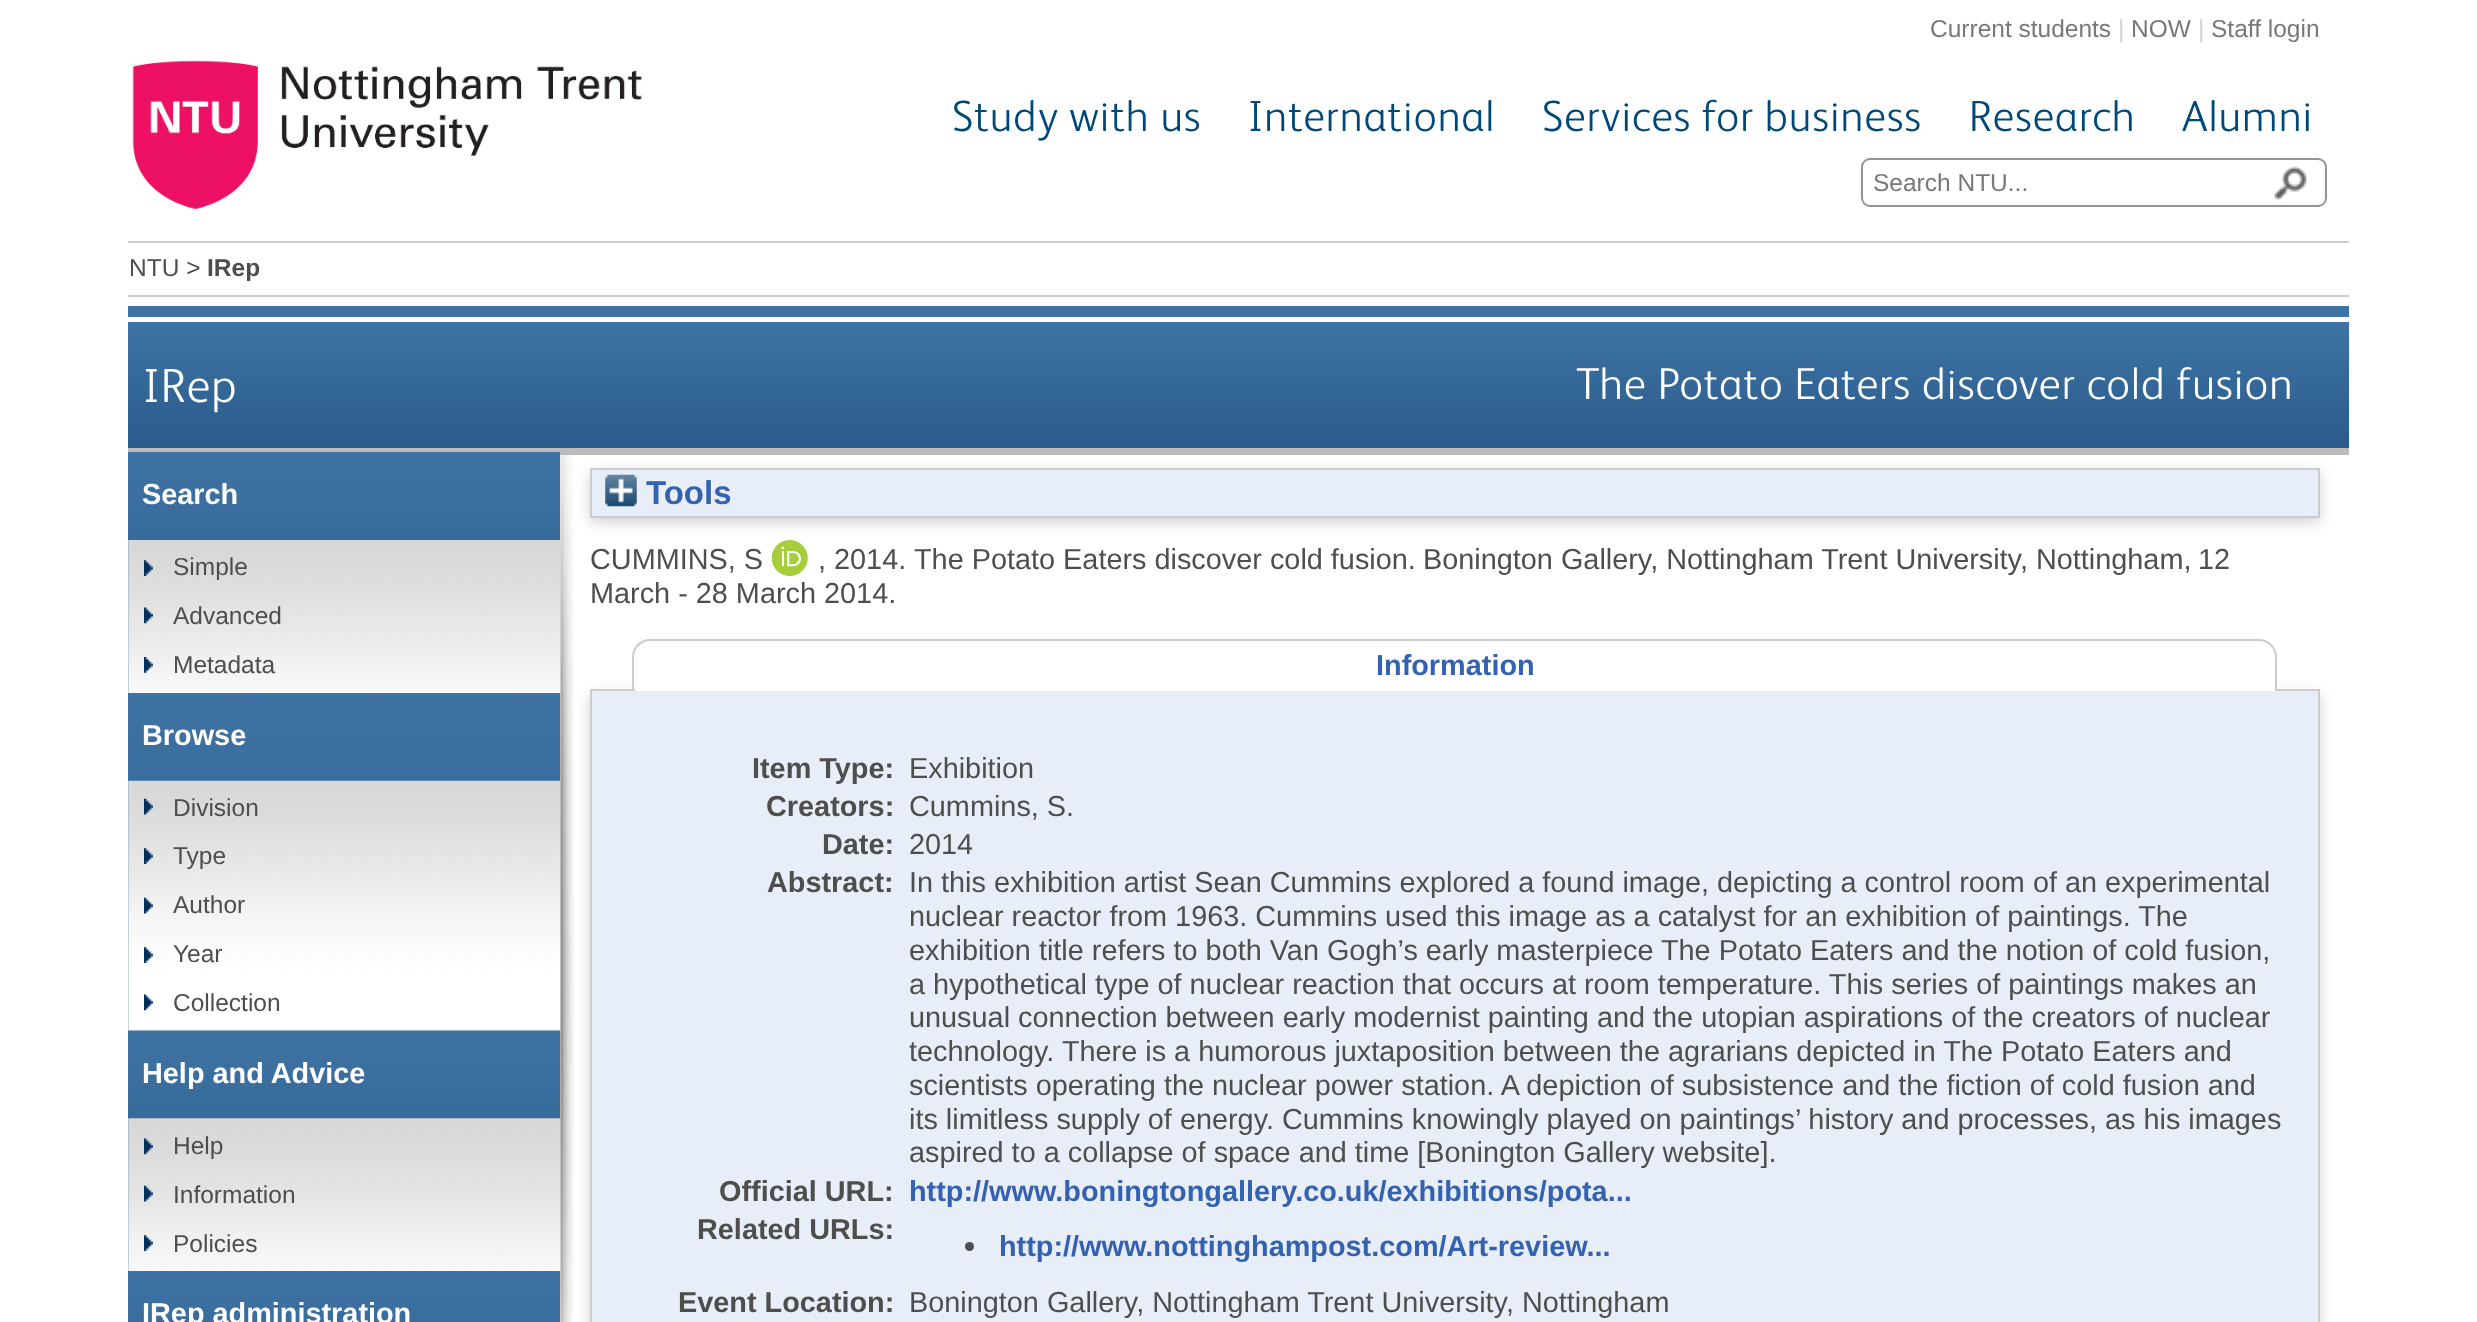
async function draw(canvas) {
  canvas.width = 2477;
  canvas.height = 1322;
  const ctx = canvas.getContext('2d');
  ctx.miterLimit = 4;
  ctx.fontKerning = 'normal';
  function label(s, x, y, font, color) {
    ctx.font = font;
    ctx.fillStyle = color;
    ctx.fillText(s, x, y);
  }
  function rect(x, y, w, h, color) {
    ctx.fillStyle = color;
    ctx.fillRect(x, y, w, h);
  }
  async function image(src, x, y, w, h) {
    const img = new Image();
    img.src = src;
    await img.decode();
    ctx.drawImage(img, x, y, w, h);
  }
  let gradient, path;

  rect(0, 0, 2477, 1322, '#fff');
  label('Current students', 1930, 37, '24.5px Liberation Sans', '#787878');
  label('|', 2118, 37, '24.5px Liberation Sans', '#d2d2d2');
  label('NOW', 2131, 37, '24.5px Liberation Sans', '#787878');
  label('|', 2198, 37, '24.5px Liberation Sans', '#d2d2d2');
  label('Staff login', 2211, 37, '24.5px Liberation Sans', '#787878');
  await image('assets/img1.png', 132, 60, 510, 150);
  ctx.letterSpacing = '1.1px';
  label('Study with us', 952, 131, '300 43.75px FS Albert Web', '#004878');
  label('International', 1248, 131, '300 43.75px FS Albert Web', '#004878');
  label('Services for business', 1542, 131, '300 43.75px FS Albert Web', '#004878');
  label('Research', 1969, 131, '300 43.75px FS Albert Web', '#004878');
  label('Alumni', 2182, 131, '300 43.75px FS Albert Web', '#004878');
  ctx.beginPath();
  ctx.roundRect(1862, 159, 464, 47, 8);
  ctx.strokeStyle = '#949494';
  ctx.lineWidth = 2;
  ctx.stroke();
  ctx.letterSpacing = '0px';
  label('Search NTU...', 1873, 191, '24.5px Liberation Sans', '#787878');
  await image('assets/img2.png', 2274, 166, 33, 35);
  rect(128, 241, 2221, 2, '#ccc');
  rect(128, 295, 2221, 2, '#ccc');
  label('NTU >', 129, 276, '24.5px Liberation Sans', '#4e4e4e');
  label('IRep', 207, 276, 'bold 24.5px Liberation Sans', '#4e4e4e');
  rect(128, 306, 2221, 11, '#3f73a4');
  await image('assets/img3.png', 560, 455, 14, 867);
  gradient = ctx.createLinearGradient(1239, 322, 1239, 448);
  gradient.addColorStop(0, '#3f73a4');
  gradient.addColorStop(1, '#295c8d');
  ctx.fillStyle = gradient;
  ctx.fillRect(128, 322, 2221, 126);
  rect(128, 448, 2221, 7, '#bbb');
  ctx.letterSpacing = '1.1px';
  label('IRep', 143, 402, '300 48px FS Albert Web', '#fff');
  label('The Potato Eaters discover cold fusion', 1576, 399, '300 44.7px FS Albert Web', '#fff');
  ctx.fillStyle = '#6464644d';
  ctx.filter = 'blur(7px)';
  ctx.beginPath();
  ctx.rect(590, 473, 1730, 49);
  ctx.fill();
  ctx.filter = 'none';
  ctx.fillStyle = '#e7eef7';
  ctx.beginPath();
  ctx.rect(591, 469, 1728, 48);
  ctx.fill();
  ctx.strokeStyle = '#ccc';
  ctx.stroke();
  await image('assets/img4.png', 605, 474, 32, 33);
  ctx.letterSpacing = '0px';
  label('Tools', 646, 504, 'bold 33px Liberation Sans', '#3461b0');
  label('CUMMINS, S', 590, 569, '28.85px Liberation Sans', '#4e4e4e');
  await image('assets/img5.png', 772, 540, 36, 36);
  label(', 2014.', 818, 569, '28.85px Liberation Sans', '#4e4e4e');
  label('The Potato Eaters discover cold fusion.', 914, 569, '28.85px Liberation Sans', '#4e4e4e');
  label('Bonington Gallery, Nottingham Trent University, Nottingham,', 1423, 569, '28.85px Liberation Sans', '#4e4e4e');
  label('12', 2198, 569, '28.85px Liberation Sans', '#4e4e4e');
  label('March - 28 March 2014.', 590, 603, '28.85px Liberation Sans', '#4e4e4e');
  ctx.fillStyle = '#6464644d';
  ctx.filter = 'blur(7px)';
  ctx.beginPath();
  ctx.rect(590, 695, 1730, 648);
  ctx.fill();
  ctx.filter = 'none';
  rect(590, 689, 1730, 2, '#ccc');
  ctx.fillStyle = '#fff';
  ctx.beginPath();
  ctx.roundRect(635, 641, 1640, 50, [16, 16, 0, 0]);
  ctx.fill();
  rect(633, 689, 1644, 1, '#ffffff21');
  ctx.fillStyle = '#ccc';
  path = new Path2D('M650 639H2259C2269 639 2277 647 2277 657V691H632V657C632 647 640 639 650 639ZM650 641H2259C2268 641 2275 648 2275 657V691H634V657C634 648 642 641 650 641Z');
  ctx.fill(path, 'evenodd');
  label('Information', 1376, 675, 'bold 28.85px Liberation Sans', '#3461b0');
  rect(592, 691, 1726, 631, '#e7eef7');
  rect(2318, 691, 2, 631, '#ccc');
  rect(590, 691, 2, 631, '#ccc');
  label('Item Type:', 752, 778, 'bold 28.85px Liberation Sans', '#4e4e4e');
  label('Exhibition', 909, 778, '28.85px Liberation Sans', '#4e4e4e');
  label('Creators:', 766, 816, 'bold 28.85px Liberation Sans', '#4e4e4e');
  label('Cummins, S.', 909, 816, '28.85px Liberation Sans', '#4e4e4e');
  label('Date:', 822, 854, 'bold 28.85px Liberation Sans', '#4e4e4e');
  label('2014', 909, 854, '28.85px Liberation Sans', '#4e4e4e');
  label('Abstract:', 767, 892, 'bold 28.85px Liberation Sans', '#4e4e4e');
  label('In this exhibition artist Sean Cummins explored a found image, depicting a control room of an experimental', 909, 892, '28.85px Liberation Sans', '#4e4e4e');
  label('nuclear reactor from 1963. Cummins used this image as a catalyst for an exhibition of paintings. The', 909, 926, '28.85px Liberation Sans', '#4e4e4e');
  label('exhibition title refers to both Van Gogh’s early masterpiece The Potato Eaters and the notion of cold fusion,', 909, 960, '28.85px Liberation Sans', '#4e4e4e');
  label('a hypothetical type of nuclear reaction that occurs at room temperature. This series of paintings makes an', 909, 994, '28.85px Liberation Sans', '#4e4e4e');
  label('unusual connection between early modernist painting and the utopian aspirations of the creators of nuclear', 909, 1027, '28.85px Liberation Sans', '#4e4e4e');
  label('technology. There is a humorous juxtaposition between the agrarians depicted in The Potato Eaters and', 909, 1061, '28.85px Liberation Sans', '#4e4e4e');
  label('scientists operating the nuclear power station. A depiction of subsistence and the fiction of cold fusion and', 909, 1095, '28.85px Liberation Sans', '#4e4e4e');
  label('its limitless supply of energy. Cummins knowingly played on paintings’ history and processes, as his images', 909, 1129, '28.85px Liberation Sans', '#4e4e4e');
  label('aspired to a collapse of space and time [Bonington Gallery website].', 909, 1162, '28.85px Liberation Sans', '#4e4e4e');
  label('Official URL:', 719, 1201, 'bold 28.85px Liberation Sans', '#4e4e4e');
  label('http://www.boningtongallery.co.uk/exhibitions/pota...', 909, 1201, 'bold 28.85px Liberation Sans', '#3461b0');
  label('Related URLs:', 697, 1239, 'bold 28.85px Liberation Sans', '#4e4e4e');
  ctx.beginPath();
  ctx.arc(969.5, 1246.5, 4.5, 0, 2 * Math.PI);
  ctx.fill();
  label('http://www.nottinghampost.com/Art-review...', 999, 1256, 'bold 28.85px Liberation Sans', '#3461b0');
  label('Event Location:', 678, 1312, 'bold 28.85px Liberation Sans', '#4e4e4e');
  label('Bonington Gallery, Nottingham Trent University, Nottingham', 909, 1312, '28.85px Liberation Sans', '#4e4e4e');
  gradient = ctx.createLinearGradient(344, 452, 344, 693);
  gradient.addColorStop(0, '#3f73a4');
  gradient.addColorStop(1, '#295c8d');
  ctx.fillStyle = gradient;
  ctx.fillRect(128, 452, 432, 241);
  label('Search', 142, 504, 'bold 28.85px Liberation Sans', '#fff');
  await image('assets/img6.png', 128, 540, 433, 153);
  await image('assets/img7.png', 144, 560, 9, 16);
  label('Simple', 173, 575, '24.5px Liberation Sans', '#4e4e4e');
  await image('assets/img8.png', 144, 607, 9, 17);
  label('Advanced', 173, 624, '24.5px Liberation Sans', '#4e4e4e');
  await image('assets/img9.png', 144, 657, 9, 16);
  label('Metadata', 173, 673, '24.5px Liberation Sans', '#4e4e4e');
  gradient = ctx.createLinearGradient(344, 693, 344, 1031);
  gradient.addColorStop(0, '#3f73a4');
  gradient.addColorStop(1, '#295c8d');
  ctx.fillStyle = gradient;
  ctx.fillRect(128, 693, 432, 338);
  label('Browse', 142, 745, 'bold 28.85px Liberation Sans', '#fff');
  await image('assets/img10.png', 128, 780, 433, 251);
  await image('assets/img11.png', 144, 798, 9, 17);
  label('Division', 173, 816, '24.5px Liberation Sans', '#4e4e4e');
  await image('assets/img12.png', 144, 848, 9, 16);
  label('Type', 173, 864, '24.5px Liberation Sans', '#4e4e4e');
  await image('assets/img13.png', 144, 897, 9, 17);
  label('Author', 173, 913, '24.5px Liberation Sans', '#4e4e4e');
  await image('assets/img14.png', 144, 947, 9, 16);
  label('Year', 173, 962, '24.5px Liberation Sans', '#4e4e4e');
  await image('assets/img15.png', 144, 994, 9, 17);
  label('Collection', 173, 1011, '24.5px Liberation Sans', '#4e4e4e');
  gradient = ctx.createLinearGradient(344, 1031, 344, 1271);
  gradient.addColorStop(0, '#3f73a4');
  gradient.addColorStop(1, '#295c8d');
  ctx.fillStyle = gradient;
  ctx.fillRect(128, 1031, 432, 240);
  label('Help and Advice', 142, 1083, 'bold 28.85px Liberation Sans', '#fff');
  await image('assets/img16.png', 128, 1118, 433, 153);
  await image('assets/img17.png', 144, 1138, 9, 17);
  label('Help', 173, 1154, '24.5px Liberation Sans', '#4e4e4e');
  await image('assets/img18.png', 144, 1185, 9, 17);
  label('Information', 173, 1203, '24.5px Liberation Sans', '#4e4e4e');
  await image('assets/img19.png', 144, 1235, 9, 16);
  label('Policies', 173, 1252, '24.5px Liberation Sans', '#4e4e4e');
  gradient = ctx.createLinearGradient(344, 1271, 344, 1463);
  gradient.addColorStop(0, '#3f73a4');
  gradient.addColorStop(1, '#295c8d');
  ctx.fillStyle = gradient;
  ctx.fillRect(128, 1271, 432, 51);
  label('IRep administration', 142, 1323, 'bold 28.85px Liberation Sans', '#fff');
}

draw(document.querySelector('canvas'));
